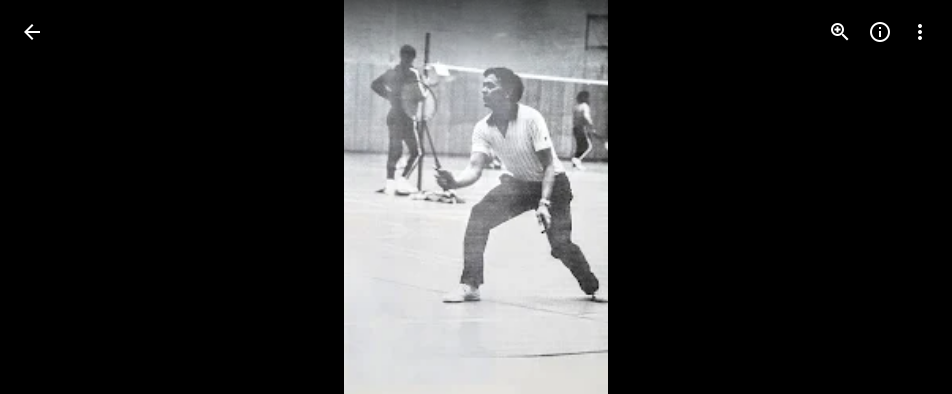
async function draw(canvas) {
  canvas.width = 952;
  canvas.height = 394;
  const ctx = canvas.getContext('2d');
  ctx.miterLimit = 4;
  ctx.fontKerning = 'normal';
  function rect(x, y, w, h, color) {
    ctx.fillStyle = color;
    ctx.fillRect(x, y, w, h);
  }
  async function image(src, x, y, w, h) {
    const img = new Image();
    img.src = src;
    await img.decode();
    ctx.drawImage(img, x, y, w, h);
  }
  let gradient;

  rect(0, 0, 952, 394, '#000');
  await image('assets/img5.png', 344, 0, 264, 394);
  gradient = ctx.createLinearGradient(476, 0, 476, 64);
  gradient.addColorStop(0, '#00000099');
  gradient.addColorStop(1, '#00000000');
  ctx.fillStyle = gradient;
  ctx.fillRect(344, 0, 264, 62);
  await image('assets/img1.png', 24, 24, 16, 16);
  await image('assets/img2.png', 831, 23, 18, 18);
  await image('assets/img3.png', 870, 22, 20, 20);
  await image('assets/img4.png', 918, 24, 4, 16);
}

draw(document.querySelector('canvas'));
